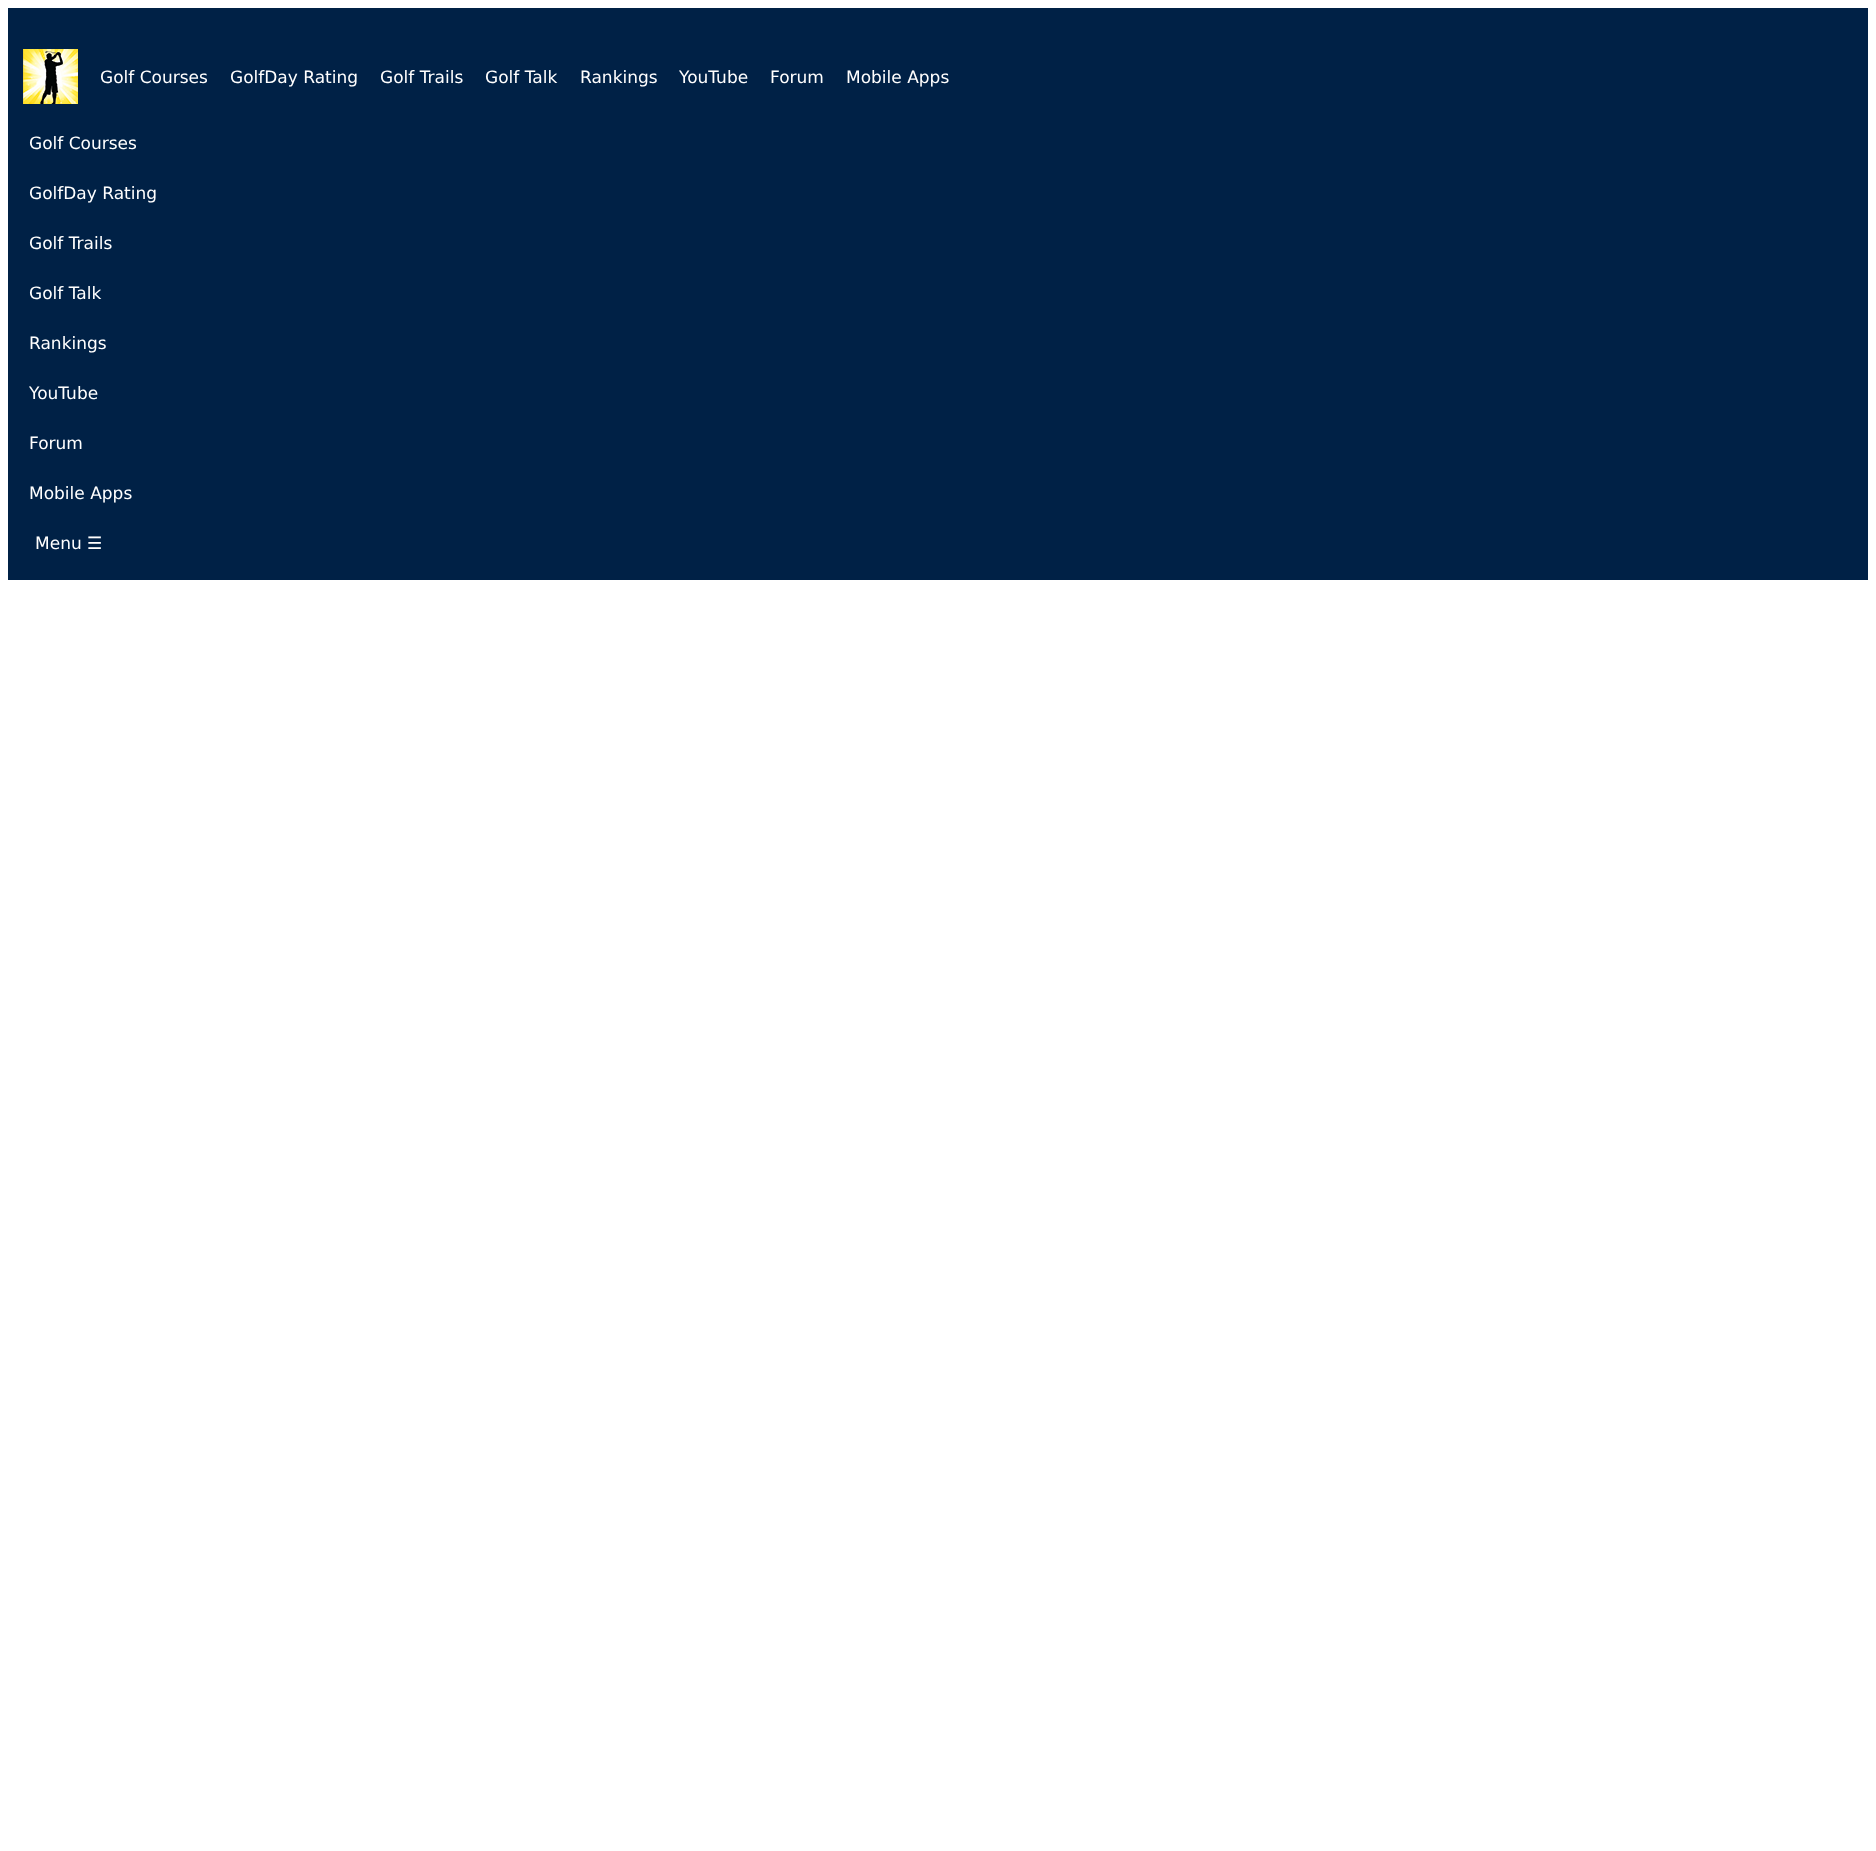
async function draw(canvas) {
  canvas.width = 1876;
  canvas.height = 1851;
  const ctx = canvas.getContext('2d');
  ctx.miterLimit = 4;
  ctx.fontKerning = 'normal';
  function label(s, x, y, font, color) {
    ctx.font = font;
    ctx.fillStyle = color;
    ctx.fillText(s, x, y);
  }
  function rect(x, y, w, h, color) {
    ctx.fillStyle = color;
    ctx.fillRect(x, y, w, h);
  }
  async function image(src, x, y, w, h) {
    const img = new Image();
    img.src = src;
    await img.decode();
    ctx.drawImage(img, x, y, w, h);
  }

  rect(0, 0, 1876, 1851, '#fff');
  rect(8, 8, 1860, 572, '#002146');
  await image('assets/img1.png', 23, 49, 55, 55);
  label('Golf Courses', 100, 83, '17px DejaVu Sans', '#fff');
  label('GolfDay Rating', 230, 83, '17px DejaVu Sans', '#fff');
  label('Golf Trails', 380, 83, '17px DejaVu Sans', '#fff');
  label('Golf Talk', 485, 83, '17px DejaVu Sans', '#fff');
  label('Rankings', 580, 83, '17px DejaVu Sans', '#fff');
  label('YouTube', 679, 83, '17px DejaVu Sans', '#fff');
  label('Forum', 770, 83, '17px DejaVu Sans', '#fff');
  label('Mobile Apps', 846, 83, '17px DejaVu Sans', '#fff');
  label('Golf Courses', 29, 149, '17px DejaVu Sans', '#fff');
  label('GolfDay Rating', 29, 199, '17px DejaVu Sans', '#fff');
  label('Golf Trails', 29, 249, '17px DejaVu Sans', '#fff');
  label('Golf Talk', 29, 299, '17px DejaVu Sans', '#fff');
  label('Rankings', 29, 349, '17px DejaVu Sans', '#fff');
  label('YouTube', 29, 399, '17px DejaVu Sans', '#fff');
  label('Forum', 29, 449, '17px DejaVu Sans', '#fff');
  label('Mobile Apps', 29, 499, '17px DejaVu Sans', '#fff');
  label('Menu ☰', 35, 549, '17px DejaVu Sans', '#fff');
}

draw(document.querySelector('canvas'));
